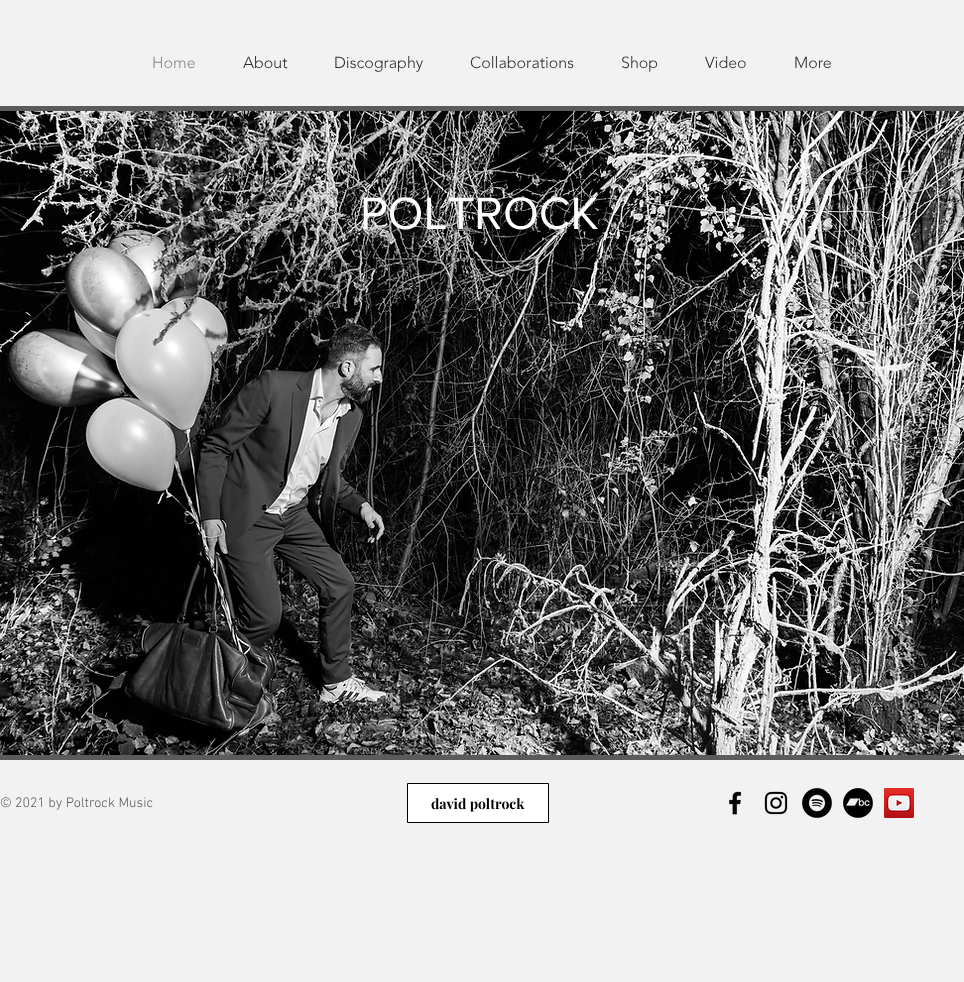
async function draw(canvas) {
  canvas.width = 964;
  canvas.height = 982;
  const ctx = canvas.getContext('2d');
  ctx.miterLimit = 4;
  ctx.fontKerning = 'normal';
  function label(s, x, y, font, color) {
    ctx.font = font;
    ctx.fillStyle = color;
    ctx.fillText(s, x, y);
  }
  function rect(x, y, w, h, color) {
    ctx.fillStyle = color;
    ctx.fillRect(x, y, w, h);
  }
  async function image(src, x, y, w, h) {
    const img = new Image();
    img.src = src;
    await img.decode();
    ctx.drawImage(img, x, y, w, h);
  }

  rect(0, 0, 964, 982, '#f2f2f2');
  label('Home', 152, 68, '300 16px "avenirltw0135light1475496"', '#898989');
  label('About', 243, 68, '300 16px "avenirltw0135light1475496"', '#2e2e2e');
  label('Discography', 334, 68, '300 16px "avenirltw0135light1475496"', '#2e2e2e');
  label('Collaborations', 470, 68, '300 16px "avenirltw0135light1475496"', '#2e2e2e');
  label('Shop', 621, 68, '300 16px "avenirltw0135light1475496"', '#2e2e2e');
  label('Video', 705, 68, '300 16px "avenirltw0135light1475496"', '#2e2e2e');
  label('More', 794, 68, '300 16px "avenirltw0135light1475496"', '#2e2e2e');
  rect(0, 106, 964, 654, '#5b5b5b');
  await image('assets/img1.png', 0, 111, 964, 644);
  label('POLTROCK', 360, 229, '47px "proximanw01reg"', '#fff');
  label('© 2021 by Poltrock Music', 0, 807, '300 14px "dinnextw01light"', '#5b5b5b');
  ctx.fillStyle = '#fff';
  ctx.beginPath();
  ctx.rect(407.5, 783.5, 141, 39);
  ctx.fill();
  ctx.strokeStyle = '#000';
  ctx.stroke();
  label('david poltrock', 431, 809, 'bold 14px Playfair Display', '#000');
  await image('assets/img2.png', 729, 791, 13, 24);
  await image('assets/img3.png', 764, 791, 24, 24);
  await image('assets/img4.png', 802, 788, 30, 30);
  await image('assets/img5.png', 843, 788, 30, 30);
  await image('assets/img6.png', 884, 788, 30, 30);
}

draw(document.querySelector('canvas'));
